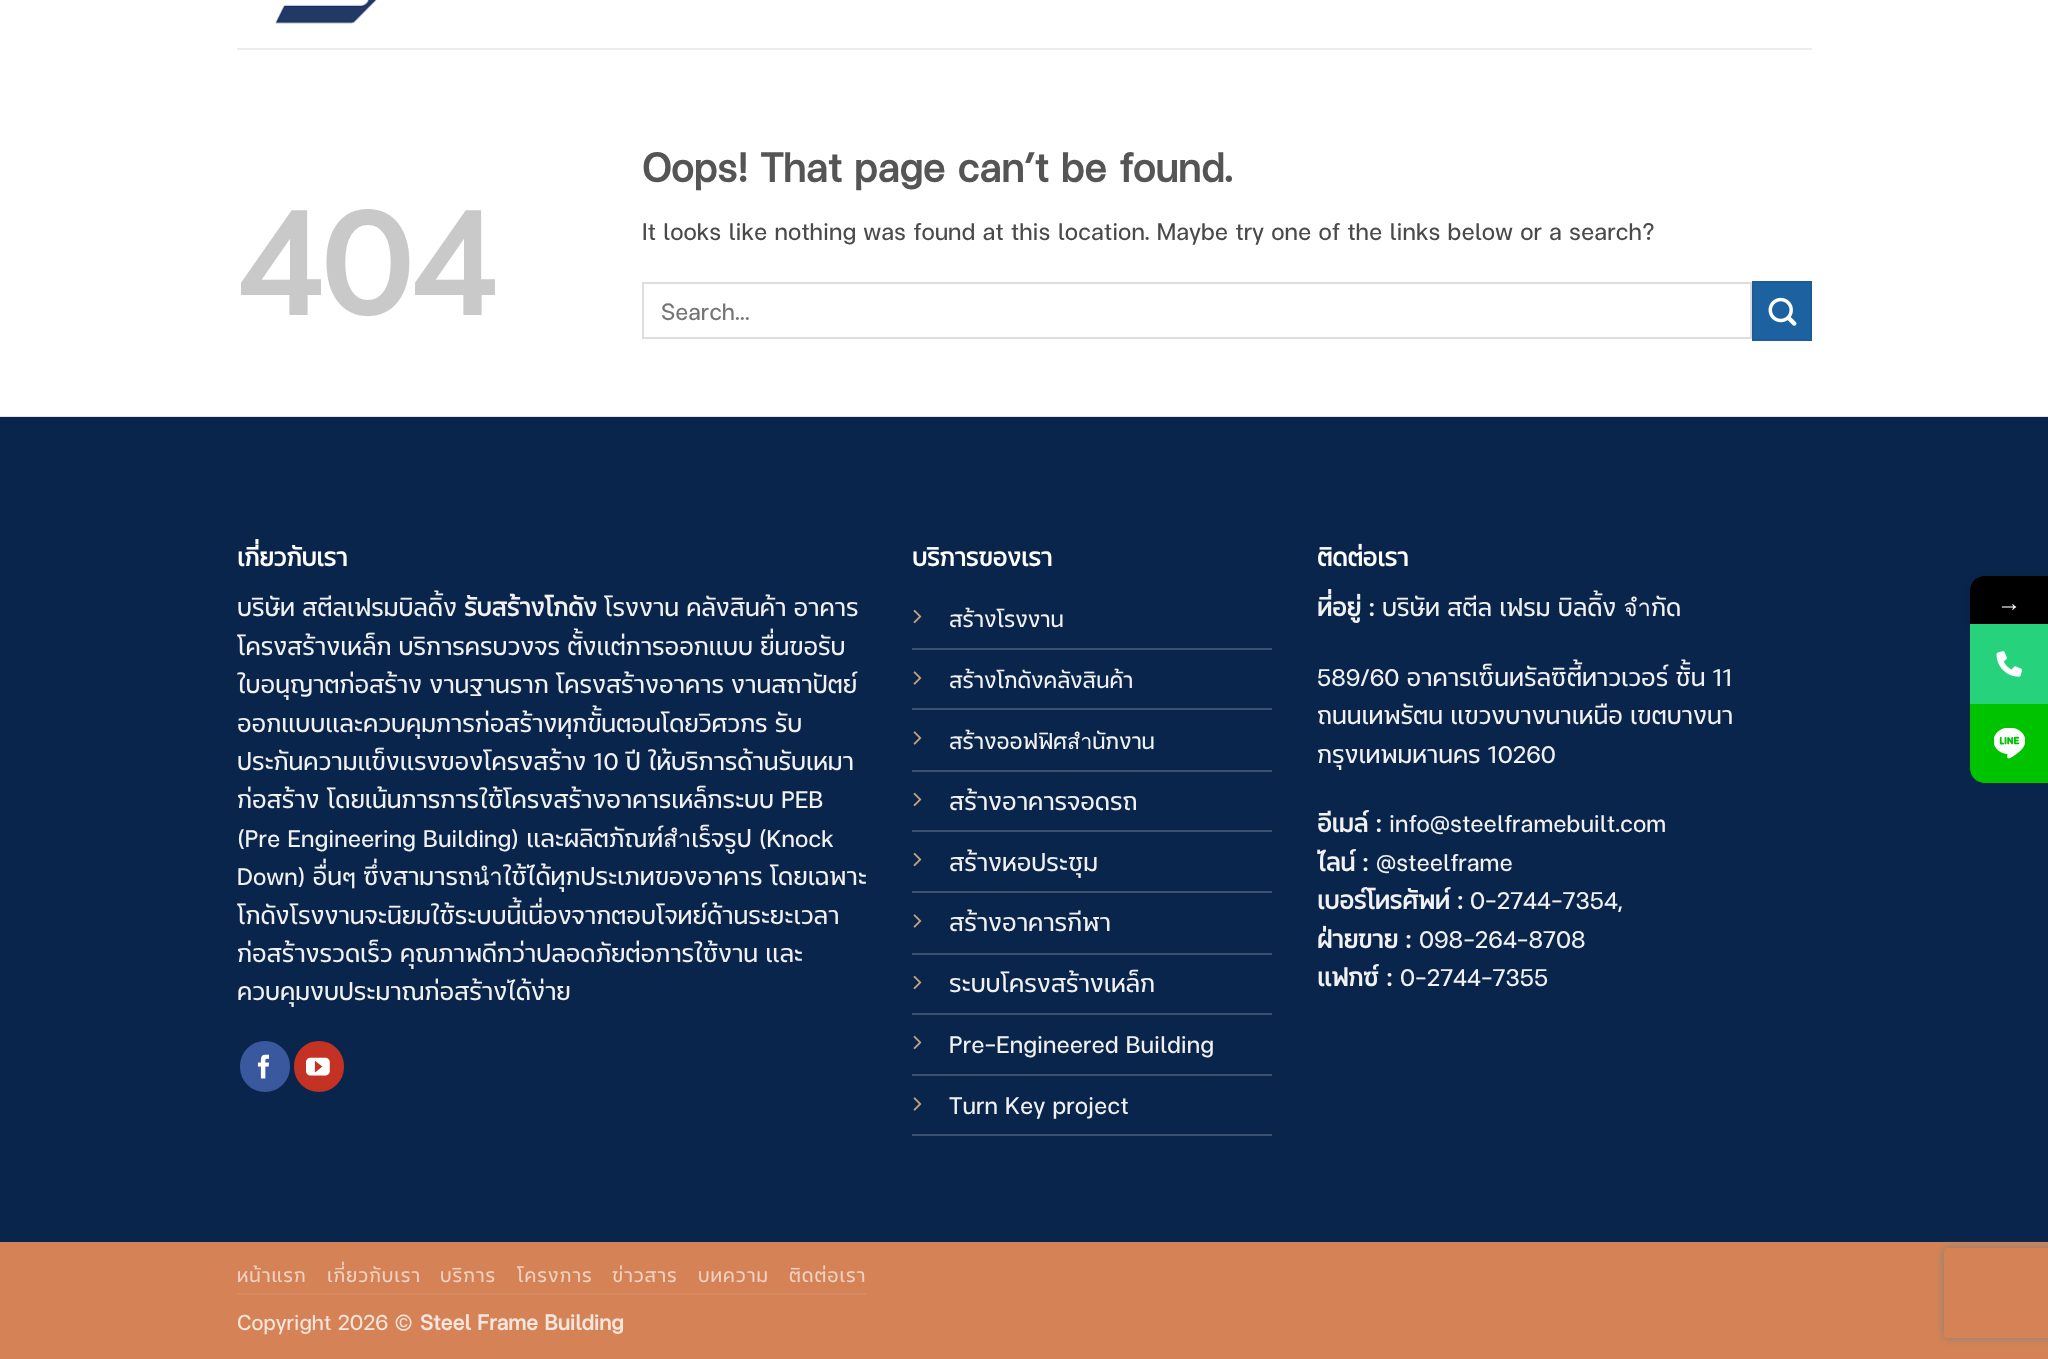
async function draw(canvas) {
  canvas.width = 2048;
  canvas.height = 1359;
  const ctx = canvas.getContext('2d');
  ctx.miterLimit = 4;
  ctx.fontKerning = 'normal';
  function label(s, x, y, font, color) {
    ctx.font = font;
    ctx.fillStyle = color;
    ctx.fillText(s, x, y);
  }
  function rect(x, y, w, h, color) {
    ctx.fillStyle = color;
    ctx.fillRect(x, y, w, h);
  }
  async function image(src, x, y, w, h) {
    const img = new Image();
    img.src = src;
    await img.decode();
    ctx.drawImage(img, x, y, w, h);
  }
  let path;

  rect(0, 0, 2048, 1359, '#fff');
  await image('assets/img1.png', 275, 0, 102, 24);
  rect(237, 48, 1575, 2, '#ededed');
  label('404', 237, 315, 'bold 144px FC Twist', '#c9c9c9');
  label('Oops! That page can’t be found.', 642, 182, 'bold 40.75px FC Twist', '#555');
  label('It looks like nothing was found at this location. Maybe try one of the links below or a search?', 642, 240, '24px FC Twist', '#4a4a4a');
  ctx.strokeStyle = '#ddd';
  ctx.lineWidth = 2;
  ctx.strokeRect(643, 283, 1108, 55);
  label('Search…', 661, 320, '23.5px FC Twist', '#757575');
  ctx.fillStyle = '#1c62a1';
  ctx.beginPath();
  ctx.rect(1753, 282, 58, 58);
  ctx.fill();
  ctx.strokeStyle = '#1b5d99';
  ctx.stroke();
  await image('assets/img2.png', 1768, 297, 29, 29);
  rect(0, 416, 2048, 1, '#e6e6e6');
  rect(0, 417, 2048, 825, '#09254c');
  label('เกี่ยวกับเรา', 237, 566, 'bold 24px FC Twist', '#fff');
  label('บริษัท สตีลเฟรมบิลดิ้ง', 237, 616, '24px FC Twist', '#f1f1f1');
  label('รับสร้างโกดัง', 464, 616, 'bold 24px FC Twist', '#f1f1f1');
  label('โรงงาน คลังสินค้า อาคาร', 604, 616, '24px FC Twist', '#f1f1f1');
  label('โครงสร้างเหล็ก บริการครบวงจร ตั้งแต่การออกแบบ ยื่นขอรับ', 237, 655, '24px FC Twist', '#f1f1f1');
  label('ใบอนุญาตก่อสร้าง งานฐานราก โครงสร้างอาคาร งานสถาปัตย์', 237, 693, '24px FC Twist', '#f1f1f1');
  label('ออกแบบและควบคุมการก่อสร้างทุกขั้นตอนโดยวิศวกร รับ', 237, 732, '24px FC Twist', '#f1f1f1');
  label('ประกันความแข็งแรงของโครงสร้าง 10 ปี ให้บริการด้านรับเหมา', 237, 770, '24px FC Twist', '#f1f1f1');
  label('ก่อสร้าง โดยเน้นการการใช้โครงสร้างอาคารเหล็กระบบ PEB', 237, 808, '24px FC Twist', '#f1f1f1');
  label('(Pre Engineering Building) และผลิตภัณฑ์สำเร็จรูป (Knock', 237, 847, '24px FC Twist', '#f1f1f1');
  label('Down) อื่นๆ ซึ่งสามารถนำใช้ได้ทุกประเภทของอาคาร โดยเฉพาะ', 237, 885, '24px FC Twist', '#f1f1f1');
  label('โกดังโรงงานจะนิยมใช้ระบบนี้เนื่องจากตอบโจทย์ด้านระยะเวลา', 237, 924, '24px FC Twist', '#f1f1f1');
  label('ก่อสร้างรวดเร็ว คุณภาพดีกว่าปลอดภัยต่อการใช้งาน และ', 237, 962, '24px FC Twist', '#f1f1f1');
  label('ควบคุมงบประมาณก่อสร้างได้ง่าย', 237, 1000, '24px FC Twist', '#f1f1f1');
  ctx.fillStyle = '#3a589d';
  ctx.beginPath();
  ctx.roundRect(241, 1042, 48, 49, 24);
  ctx.fill();
  ctx.strokeStyle = '#3a589d';
  ctx.stroke();
  await image('assets/img3.png', 257, 1054, 12, 25);
  ctx.fillStyle = '#c33223';
  ctx.beginPath();
  ctx.roundRect(295, 1042, 48, 49, 24);
  ctx.fill();
  ctx.strokeStyle = '#c33223';
  ctx.stroke();
  await image('assets/img4.png', 306, 1057, 24, 19);
  label('บริการของเรา', 912, 566, 'bold 24px FC Twist', '#fff');
  rect(912, 648, 360, 2, '#3a5170');
  await image('assets/img5.png', 913, 609, 9, 15);
  label('สร้างโรงงาน', 949, 627, '21.5px FC Twist', '#f1f1f1');
  rect(912, 708, 360, 2, '#3a5170');
  await image('assets/img6.png', 913, 671, 9, 14);
  label('สร้างโกดังคลังสินค้า', 949, 688, '21.5px FC Twist', '#f1f1f1');
  rect(912, 770, 360, 2, '#3a5170');
  await image('assets/img6.png', 913, 731, 9, 14);
  label('สร้างออฟฟิศสำนักงาน', 949, 749, '21.5px FC Twist', '#f1f1f1');
  rect(912, 830, 360, 2, '#3a5170');
  await image('assets/img5.png', 913, 792, 9, 15);
  label('สร้างอาคารจอดรถ', 949, 810, '24px FC Twist', '#f1f1f1');
  rect(912, 891, 360, 2, '#3a5170');
  await image('assets/img5.png', 913, 852, 9, 15);
  label('สร้างหอประชุม', 949, 871, '24px FC Twist', '#f1f1f1');
  rect(912, 953, 360, 2, '#3a5170');
  await image('assets/img6.png', 913, 914, 9, 14);
  label('สร้างอาคารกีฬา', 949, 931, '24px FC Twist', '#f1f1f1');
  rect(912, 1013, 360, 2, '#3a5170');
  await image('assets/img5.png', 913, 975, 9, 15);
  label('ระบบโครงสร้างเหล็ก', 949, 992, '24px FC Twist', '#f1f1f1');
  rect(912, 1074, 360, 2, '#3a5170');
  await image('assets/img5.png', 913, 1035, 9, 15);
  label('Pre-Engineered Building', 949, 1053, '24px FC Twist', '#f1f1f1');
  rect(912, 1134, 360, 2, '#3a5170');
  await image('assets/img6.png', 913, 1097, 9, 14);
  label('Turn Key project', 949, 1114, '24px FC Twist', '#f1f1f1');
  label('ติดต่อเรา', 1317, 566, 'bold 24px FC Twist', '#fff');
  label('ที่อยู่ :', 1317, 616, 'bold 24px FC Twist', '#f1f1f1');
  label('บริษัท สตีล เฟรม บิลดิ้ง จำกัด', 1382, 616, '24px FC Twist', '#f1f1f1');
  label('589/60 อาคารเซ็นทรัลซิตี้ทาวเวอร์ ชั้น 11', 1317, 686, '24px FC Twist', '#f1f1f1');
  label('ถนนเทพรัตน แขวงบางนาเหนือ เขตบางนา', 1317, 724, '24px FC Twist', '#f1f1f1');
  label('กรุงเทพมหานคร 10260', 1317, 763, '24px FC Twist', '#f1f1f1');
  label('อีเมล์ :', 1317, 832, 'bold 24px FC Twist', '#f1f1f1');
  label('info@steelframebuilt.com', 1389, 832, '24px FC Twist', '#f1f1f1');
  label('ไลน์ :', 1317, 871, 'bold 24px FC Twist', '#f1f1f1');
  label('@steelframe', 1376, 871, '24px FC Twist', '#f1f1f1');
  label('เบอร์โทรศัพท์ :', 1317, 909, 'bold 24px FC Twist', '#f1f1f1');
  label('0-2744-7354,', 1470, 909, '24px FC Twist', '#f1f1f1');
  label('ฝ่ายขาย :', 1317, 948, 'bold 24px FC Twist', '#f1f1f1');
  label('098-264-8708', 1419, 948, '24px FC Twist', '#f1f1f1');
  label('แฟกซ์ :', 1317, 986, 'bold 24px FC Twist', '#f1f1f1');
  label('0-2744-7355', 1400, 986, '24px FC Twist', '#f1f1f1');
  rect(0, 1242, 2048, 117, '#d58356');
  rect(237, 1293, 629, 2, '#d88b61');
  ctx.letterSpacing = '1px';
  label('หน้าแรก', 237, 1282, '18.5px FC Twist', '#f0d2c2');
  label('เกี่ยวกับเรา', 327, 1282, '18.5px FC Twist', '#f0d2c2');
  label('บริการ', 440, 1282, '18.5px FC Twist', '#f0d2c2');
  label('โครงการ', 517, 1282, '18.5px FC Twist', '#f0d2c2');
  label('ข่าวสาร', 612, 1282, '18.5px FC Twist', '#f0d2c2');
  label('บทความ', 698, 1282, '18.5px FC Twist', '#f0d2c2');
  label('ติดต่อเรา', 789, 1282, '18.5px FC Twist', '#f0d2c2');
  ctx.letterSpacing = '0px';
  label('Copyright 2026 ©', 237, 1330, '21.5px FC Twist', '#f7e6dd');
  label('Steel Frame Building', 420, 1330, 'bold 21.5px FC Twist', '#f7e6dd');
  ctx.fillStyle = '#00000029';
  ctx.filter = 'blur(4.5px)';
  ctx.beginPath();
  ctx.roundRect(1970, 581, 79, 48, 15);
  ctx.fill();
  ctx.filter = 'none';
  ctx.fillStyle = '#000';
  path = new Path2D('M1985 576H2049V624H1970V591C1970 582.5 1976.5 576 1985 576Z');
  ctx.fill(path);
  label('→', 1997, 611, '24px Liberation Serif', '#fff');
  rect(1970, 624, 78, 80, '#26d37c');
  await image('assets/img7.png', 1996, 651, 26, 26);
  ctx.fillStyle = '#00c300';
  path = new Path2D('M1970 704H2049V783H1985C1976.5 783 1970 776.5 1970 768Z');
  ctx.fill(path);
  await image('assets/img8.png', 1994, 728, 31, 31);
  ctx.save();
  path = new Path2D('M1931 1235H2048V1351H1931ZM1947 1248H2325C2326.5 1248 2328 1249.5 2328 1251V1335C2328 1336.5 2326.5 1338 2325 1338H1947C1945.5 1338 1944 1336.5 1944 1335V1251C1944 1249.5 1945.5 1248 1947 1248Z');
  ctx.clip(path, 'evenodd');
  ctx.fillStyle = '#808080';
  ctx.filter = 'blur(4px)';
  ctx.beginPath();
  ctx.roundRect(1944, 1248, 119, 90, 3);
  ctx.fill();
  ctx.filter = 'none';
  ctx.restore();
}

draw(document.querySelector('canvas'));
